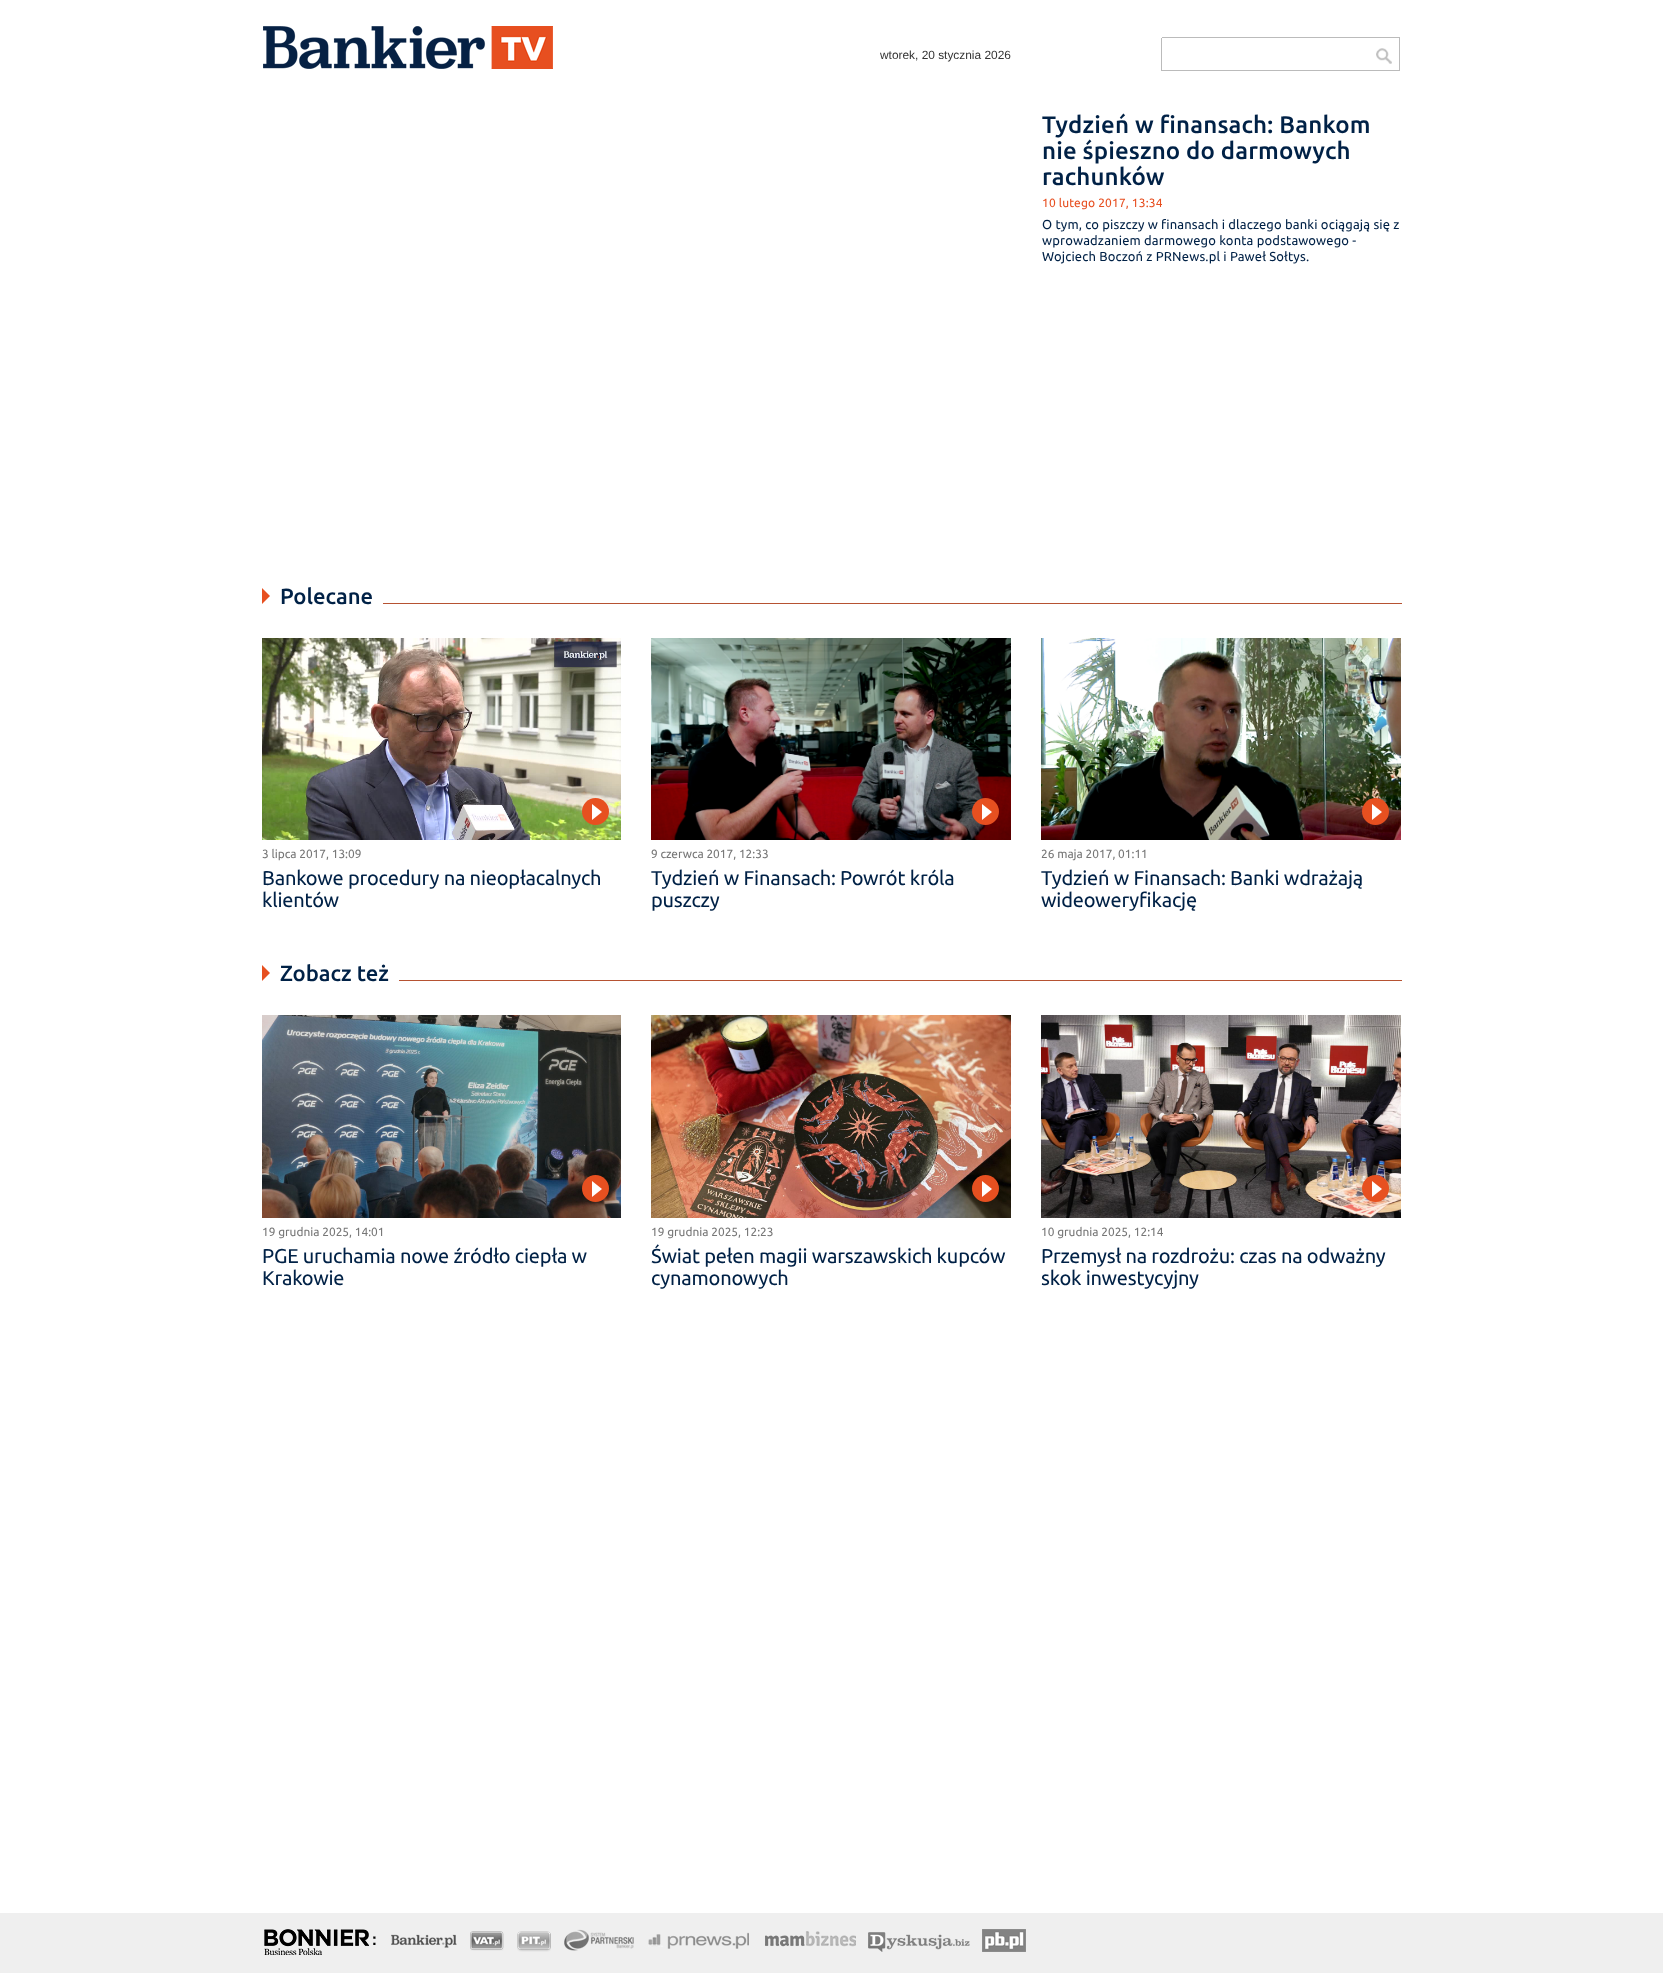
async function draw(canvas) {
  canvas.width = 1663;
  canvas.height = 1973;
  const ctx = canvas.getContext('2d');
  ctx.miterLimit = 4;
  ctx.fontKerning = 'normal';
  function label(s, x, y, font, color) {
    ctx.font = font;
    ctx.fillStyle = color;
    ctx.fillText(s, x, y);
  }
  function rect(x, y, w, h, color) {
    ctx.fillStyle = color;
    ctx.fillRect(x, y, w, h);
  }
  async function image(src, x, y, w, h) {
    const img = new Image();
    img.src = src;
    await img.decode();
    ctx.drawImage(img, x, y, w, h);
  }
  let path;

  rect(0, 0, 1663, 1973, '#fff');
  await image('assets/img1.png', 263, 26, 290, 43);
  label('wtorek, 20 stycznia 2026', 880, 59, '11.9px Liberation Sans', '#333');
  rect(1162, 37, 238, 1, '#bbb');
  rect(1162, 70, 205, 1, '#bbb');
  rect(1161, 38, 1, 33, '#bbb');
  await image('assets/img2.png', 1376, 48, 16, 16);
  rect(1399, 38, 1, 33, '#bbb');
  rect(1366, 70, 34, 1, '#bbb');
  ctx.letterSpacing = '0.15px';
  label('Tydzień w finansach: Bankom', 1042, 133, '500 24px Ubuntu', '#002146');
  label('nie śpieszno do darmowych', 1042, 159, '500 24px Ubuntu', '#002146');
  label('rachunków', 1042, 185, '500 24px Ubuntu', '#002146');
  label('10 lutego 2017, 13:34', 1042, 207, '12px Ubuntu', '#e74f20');
  label('O tym, co piszczy w finansach i dlaczego banki ociągają się z', 1042, 229, '13px Ubuntu', '#002146');
  label('wprowadzaniem darmowego konta podstawowego -', 1042, 245, '13px Ubuntu', '#002146');
  label('Wojciech Boczoń z PRNews.pl i Paweł Sołtys.', 1042, 261, '13px Ubuntu', '#002146');
  ctx.fillStyle = '#e75020';
  path = new Path2D('M262 604V588L270 596Z');
  ctx.fill(path);
  ctx.letterSpacing = '0px';
  label('Polecane', 280, 604, '500 22px Ubuntu', '#002146');
  rect(383, 603, 1019, 1, '#b65232');
  await image('assets/img3.png', 262, 638, 359, 202);
  ctx.fillStyle = '#e75020';
  ctx.beginPath();
  ctx.arc(595.5, 811.5, 13.5, 0, 2 * Math.PI);
  ctx.fill();
  ctx.fillStyle = '#fff';
  path = new Path2D('M592 820V804L602 812Z');
  ctx.fill(path);
  label('3 lipca 2017, 13:09', 262, 858, '11.9px Ubuntu', '#777');
  ctx.letterSpacing = '-0.2px';
  label('Bankowe procedury na nieopłacalnych', 262, 885, '20px Ubuntu', '#002146');
  label('klientów', 262, 907, '20px Ubuntu', '#002146');
  await image('assets/img4.png', 651, 638, 360, 202);
  ctx.fillStyle = '#e75020';
  ctx.beginPath();
  ctx.arc(985.5, 811.5, 13.5, 0, 2 * Math.PI);
  ctx.fill();
  ctx.fillStyle = '#fff';
  path = new Path2D('M982 820V804L992 812Z');
  ctx.fill(path);
  ctx.letterSpacing = '0px';
  label('9 czerwca 2017, 12:33', 651, 858, '11.9px Ubuntu', '#777');
  ctx.letterSpacing = '-0.2px';
  label('Tydzień w Finansach: Powrót króla', 651, 885, '20px Ubuntu', '#002146');
  label('puszczy', 651, 907, '20px Ubuntu', '#002146');
  await image('assets/img5.png', 1041, 638, 360, 202);
  ctx.fillStyle = '#e75020';
  ctx.beginPath();
  ctx.arc(1375.5, 811.5, 13.5, 0, 2 * Math.PI);
  ctx.fill();
  ctx.fillStyle = '#fff';
  path = new Path2D('M1372 820V804L1382 812Z');
  ctx.fill(path);
  ctx.letterSpacing = '0px';
  label('26 maja 2017, 01:11', 1041, 858, '11.9px Ubuntu', '#777');
  ctx.letterSpacing = '-0.2px';
  label('Tydzień w Finansach: Banki wdrażają', 1041, 885, '20px Ubuntu', '#002146');
  label('wideoweryfikację', 1041, 907, '20px Ubuntu', '#002146');
  ctx.fillStyle = '#e75020';
  path = new Path2D('M262 981V965L270 973Z');
  ctx.fill(path);
  ctx.letterSpacing = '0px';
  label('Zobacz też', 280, 981, '500 22px Ubuntu', '#002146');
  rect(399, 980, 1003, 1, '#b65232');
  await image('assets/img6.png', 262, 1015, 359, 203);
  ctx.fillStyle = '#e75020';
  ctx.beginPath();
  ctx.arc(595.5, 1188.5, 13.5, 0, 2 * Math.PI);
  ctx.fill();
  ctx.fillStyle = '#fff';
  path = new Path2D('M592 1197V1181L602 1189Z');
  ctx.fill(path);
  label('19 grudnia 2025, 14:01', 262, 1236, '11.9px Ubuntu', '#777');
  ctx.letterSpacing = '-0.2px';
  label('PGE uruchamia nowe źródło ciepła w', 262, 1263, '20px Ubuntu', '#002146');
  label('Krakowie', 262, 1285, '20px Ubuntu', '#002146');
  await image('assets/img7.png', 651, 1015, 360, 203);
  ctx.fillStyle = '#e75020';
  ctx.beginPath();
  ctx.arc(985.5, 1188.5, 13.5, 0, 2 * Math.PI);
  ctx.fill();
  ctx.fillStyle = '#fff';
  path = new Path2D('M982 1197V1181L992 1189Z');
  ctx.fill(path);
  ctx.letterSpacing = '0px';
  label('19 grudnia 2025, 12:23', 651, 1236, '11.9px Ubuntu', '#777');
  ctx.letterSpacing = '-0.2px';
  label('Świat pełen magii warszawskich kupców', 651, 1263, '20px Ubuntu', '#002146');
  label('cynamonowych', 651, 1285, '20px Ubuntu', '#002146');
  await image('assets/img8.png', 1041, 1015, 360, 203);
  ctx.fillStyle = '#e75020';
  ctx.beginPath();
  ctx.arc(1375.5, 1188.5, 13.5, 0, 2 * Math.PI);
  ctx.fill();
  ctx.fillStyle = '#fff';
  path = new Path2D('M1372 1197V1181L1382 1189Z');
  ctx.fill(path);
  ctx.letterSpacing = '0px';
  label('10 grudnia 2025, 12:14', 1041, 1236, '11.9px Ubuntu', '#777');
  ctx.letterSpacing = '-0.2px';
  label('Przemysł na rozdrożu: czas na odważny', 1041, 1263, '20px Ubuntu', '#002146');
  label('skok inwestycyjny', 1041, 1285, '20px Ubuntu', '#002146');
  rect(0, 1913, 1663, 60, '#efefef');
  await image('assets/img9.png', 264, 1929, 112, 26);
  await image('assets/img10.png', 391, 1934, 66, 14);
  await image('assets/img11.png', 470, 1931, 34, 20);
  await image('assets/img12.png', 517, 1931, 34, 21);
  await image('assets/img13.png', 564, 1929, 70, 22);
  await image('assets/img14.png', 648, 1932, 101, 17);
  await image('assets/img15.png', 765, 1931, 91, 16);
  await image('assets/img16.png', 868, 1932, 102, 20);
  await image('assets/img17.png', 982, 1929, 44, 23);
}

draw(document.querySelector('canvas'));
